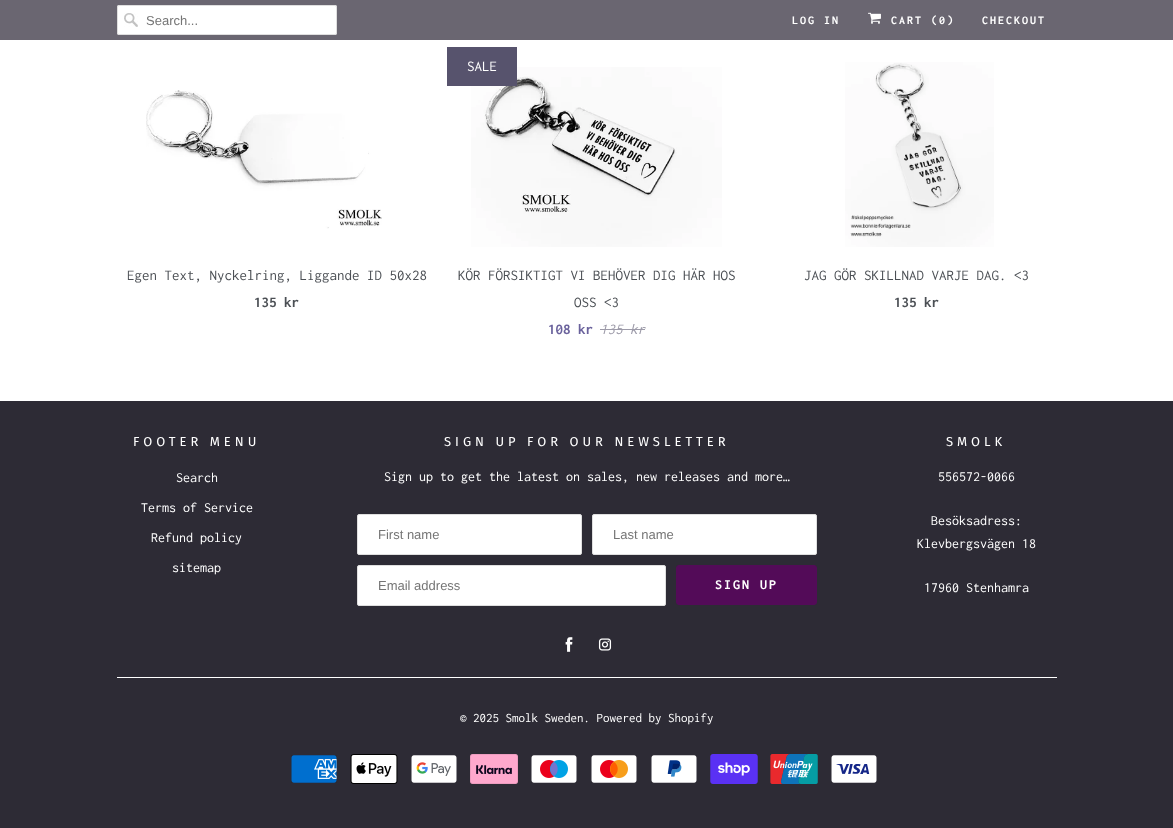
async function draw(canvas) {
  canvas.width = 1173;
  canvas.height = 828;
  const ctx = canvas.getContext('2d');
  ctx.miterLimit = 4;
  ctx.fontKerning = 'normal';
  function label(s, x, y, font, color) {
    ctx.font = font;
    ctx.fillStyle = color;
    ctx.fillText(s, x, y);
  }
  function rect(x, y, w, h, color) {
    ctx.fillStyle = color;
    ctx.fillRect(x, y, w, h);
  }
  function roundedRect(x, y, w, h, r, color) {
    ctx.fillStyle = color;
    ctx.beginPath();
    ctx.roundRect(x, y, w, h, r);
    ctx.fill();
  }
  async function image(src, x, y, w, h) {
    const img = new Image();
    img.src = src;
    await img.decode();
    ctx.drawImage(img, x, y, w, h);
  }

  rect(0, 0, 1173, 828, '#fff');
  rect(0, 0, 1173, 40, '#6a6671');
  roundedRect(117, 5, 220, 30, 2, '#fff');
  await image('assets/img1.png', 124, 13, 14, 14);
  ctx.beginPath();
  ctx.roundRect(117.5, 5.5, 219, 29, 1.5);
  ctx.strokeStyle = '#dfdfdf';
  ctx.stroke();
  label('Search...', 146, 25, '13px Liberation Sans', '#757575');
  ctx.letterSpacing = '2px';
  label('LOG IN', 792, 24, 'bold 12px Inconsolata', '#fff');
  await image('assets/img2.png', 868, 12, 13, 12);
  label('CART (0)', 891, 24, 'bold 12px Inconsolata', '#fff');
  label('CHECKOUT', 982, 24, 'bold 12px Inconsolata', '#fff');
  await image('assets/img3.png', 146, 90, 236, 139);
  ctx.letterSpacing = '0px';
  label('Egen Text, Nyckelring, Liggande ID 50x28', 127, 280, '15px Inconsolata', '#4b4f54');
  label('135 kr', 254, 307, 'bold 15px Inconsolata', '#4b4f54');
  await image('assets/img4.png', 471, 67, 251, 180);
  rect(447, 47, 70, 39, '#57536d');
  label('SALE', 467, 71, '15px Inconsolata', '#fff');
  label('KÖR FÖRSIKTIGT VI BEHÖVER DIG HÄR HOS', 458, 280, '15px Inconsolata', '#4b4f54');
  label('OSS <3', 574, 307, '15px Inconsolata', '#4b4f54');
  label('108 kr', 548, 334, 'bold 15px Inconsolata', '#6a629c');
  label('135 kr', 600, 334, 'italic 15px Inconsolata', '#9d9ba9');
  rect(600, 329, 45, 1, '#9d9ba9');
  await image('assets/img5.png', 845, 62, 149, 185);
  label('JAG GÖR SKILLNAD VARJE DAG. <3', 804, 280, '15px Inconsolata', '#4b4f54');
  label('135 kr', 894, 307, 'bold 15px Inconsolata', '#4b4f54');
  rect(0, 401, 1173, 427, '#2d2b35');
  ctx.letterSpacing = '4px';
  label('FOOTER MENU', 133, 446, '13px Fira Sans', '#fff');
  ctx.letterSpacing = '0px';
  label('Search', 176, 482, '14px Inconsolata', '#fff');
  label('Terms of Service', 141, 512, '14px Inconsolata', '#fff');
  label('Refund policy', 151, 542, '14px Inconsolata', '#fff');
  label('sitemap', 172, 572, '14px Inconsolata', '#fff');
  ctx.letterSpacing = '4px';
  label('SIGN UP FOR OUR NEWSLETTER', 444, 446, '13px Fira Sans', '#fff');
  ctx.letterSpacing = '0px';
  label('Sign up to get the latest on sales, new releases and more…', 384, 481, '14px Inconsolata', '#fff');
  ctx.beginPath();
  ctx.roundRect(357.5, 514.5, 224, 40, 1.5);
  ctx.fill();
  ctx.stroke();
  label('First name', 378, 539, '13px Liberation Sans', '#757575');
  ctx.fillStyle = '#fff';
  ctx.beginPath();
  ctx.roundRect(592.5, 514.5, 224, 40, 1.5);
  ctx.fill();
  ctx.stroke();
  label('Last name', 613, 539, '13px Liberation Sans', '#757575');
  ctx.fillStyle = '#fff';
  ctx.beginPath();
  ctx.roundRect(357.5, 565.5, 308, 40, 1.5);
  ctx.fill();
  ctx.stroke();
  label('Email address', 378, 590, '13px Liberation Sans', '#757575');
  ctx.fillStyle = '#530b58';
  ctx.beginPath();
  ctx.roundRect(676.5, 565.5, 140, 39, 2.5);
  ctx.fill();
  ctx.strokeStyle = '#530b58';
  ctx.stroke();
  ctx.letterSpacing = '2px';
  label('SIGN UP', 715, 589, 'bold 14px Inconsolata', '#fff');
  await image('assets/img6.png', 565, 637, 8, 15);
  await image('assets/img7.png', 598, 638, 14, 13);
  ctx.letterSpacing = '4px';
  label('SMOLK', 946, 446, '13px Fira Sans', '#fff');
  ctx.letterSpacing = '0px';
  label('556572-0066', 938, 481, '14px Inconsolata', '#fff');
  label('Besöksadress:', 931, 525, '14px Inconsolata', '#fff');
  label('Klevbergsvägen 18', 917, 548, '14px Inconsolata', '#fff');
  label('17960 Stenhamra', 924, 592, '14px Inconsolata', '#fff');
  rect(117, 677, 940, 1, '#fff');
  label('© 2025 Smolk Sweden. Powered by Shopify', 460, 722, '13px Inconsolata', '#fff');
  await image('assets/img8.png', 291, 755, 46, 28);
  await image('assets/img9.png', 350, 754, 48, 30);
  await image('assets/img10.png', 411, 755, 46, 28);
  await image('assets/img11.png', 470, 754, 48, 30);
  await image('assets/img12.png', 531, 755, 46, 28);
  await image('assets/img13.png', 591, 755, 46, 28);
  await image('assets/img14.png', 651, 755, 46, 28);
  await image('assets/img15.png', 710, 754, 48, 30);
  await image('assets/img16.png', 770, 754, 48, 30);
  await image('assets/img17.png', 831, 755, 46, 28);
}

draw(document.querySelector('canvas'));
